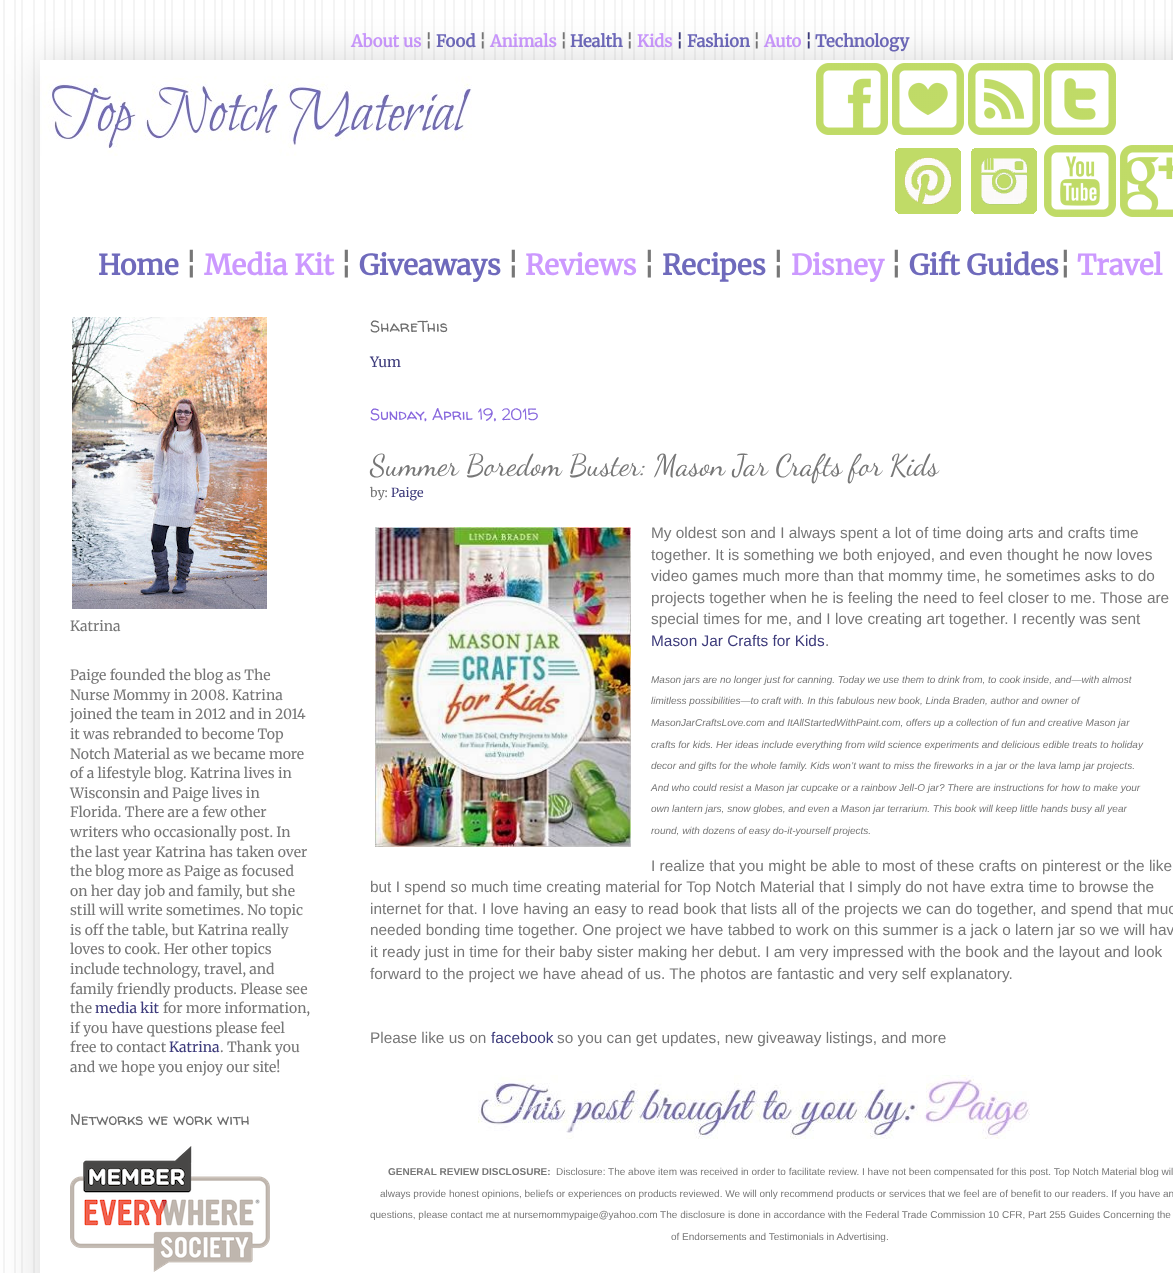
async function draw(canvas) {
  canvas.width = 1173;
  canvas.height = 1273;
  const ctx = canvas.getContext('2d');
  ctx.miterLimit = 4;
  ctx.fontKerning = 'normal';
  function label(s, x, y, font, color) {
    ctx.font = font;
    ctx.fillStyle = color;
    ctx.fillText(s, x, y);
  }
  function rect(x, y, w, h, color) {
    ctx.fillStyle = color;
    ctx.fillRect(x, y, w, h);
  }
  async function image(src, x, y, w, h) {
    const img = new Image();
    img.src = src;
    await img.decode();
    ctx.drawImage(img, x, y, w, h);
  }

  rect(0, 0, 1173, 1273, '#fff');
  await image('assets/img1.png', 0, 0, 1173, 1273);
  await image('assets/img2.png', 0, 30, 1173, 400);
  label('About us', 351, 47, 'bold 16.5px Merriweather', '#c9f');
  label('¦', 425, 47, 'bold 16.5px Merriweather', '#777');
  label('Food', 436, 47, 'bold 16.5px Merriweather', '#6f6abc');
  label('¦', 479, 47, 'bold 16.5px Merriweather', '#777');
  label('Animals', 490, 47, 'bold 16.5px Merriweather', '#c9f');
  label('¦', 560, 47, 'bold 16.5px Merriweather', '#777');
  label('Health', 570, 47, 'bold 16.5px Merriweather', '#6f6abc');
  label('¦', 626, 47, 'bold 16.5px Merriweather', '#777');
  label('Kids', 637, 47, 'bold 16.5px Merriweather', '#c9f');
  label('¦', 676, 47, 'bold 16.5px Merriweather', '#3d3b7b');
  label('Fashion', 687, 47, 'bold 16.5px Merriweather', '#6f6abc');
  label('¦', 753, 47, 'bold 16.5px Merriweather', '#777');
  label('Auto', 764, 47, 'bold 16.5px Merriweather', '#c9f');
  label('¦', 805, 47, 'bold 16.5px Merriweather', '#3d3b7b');
  label('Technology', 815, 47, 'bold 16.5px Merriweather', '#6f6abc');
  ctx.fillStyle = '#00000026';
  ctx.filter = 'blur(20px)';
  ctx.beginPath();
  ctx.rect(40, 60, 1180, 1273);
  ctx.fill();
  ctx.filter = 'none';
  rect(40, 60, 1133, 1213, '#fff');
  await image('assets/img3.png', 40, 76, 432, 80);
  await image('assets/img4.png', 816, 63, 72, 72);
  await image('assets/img5.png', 892, 63, 72, 72);
  await image('assets/img6.png', 968, 63, 72, 72);
  await image('assets/img7.png', 1044, 63, 72, 72);
  await image('assets/img8.png', 895, 148, 66, 66);
  await image('assets/img9.png', 971, 148, 66, 66);
  await image('assets/img10.png', 1044, 145, 72, 72);
  await image('assets/img11.png', 1120, 145, 53, 72);
  label('Home', 98, 275, 'bold 28px Merriweather', '#6f6abc');
  label('¦', 185, 275, 'bold 28px Merriweather', '#777');
  label('Media Kit', 204, 275, 'bold 28px Merriweather', '#c9f');
  label('¦', 340, 275, 'bold 28px Merriweather', '#777');
  label('Giveaways', 359, 275, 'bold 28px Merriweather', '#6f6abc');
  label('¦', 507, 275, 'bold 28px Merriweather', '#777');
  label('Reviews', 525, 275, 'bold 28px Merriweather', '#c9f');
  label('¦', 643, 275, 'bold 28px Merriweather', '#777');
  label('Recipes', 662, 275, 'bold 28px Merriweather', '#6f6abc');
  label('¦', 772, 275, 'bold 28px Merriweather', '#777');
  label('Disney', 791, 275, 'bold 28px Merriweather', '#c9f');
  label('¦', 890, 275, 'bold 28px Merriweather', '#777');
  label('Gift Guides', 909, 275, 'bold 28px Merriweather', '#6f6abc');
  label('¦', 1059, 275, 'bold 28px Merriweather', '#777');
  label('Travel', 1077, 275, 'bold 28px Merriweather', '#c9f');
  await image('assets/img12.png', 72, 317, 195, 292);
  label('Katrina', 70, 631, '300 14px Merriweather', '#777');
  label('Paige founded the blog as The', 70, 680, '300 14px Merriweather', '#777');
  label('Nurse Mommy in 2008. Katrina', 70, 700, '300 14px Merriweather', '#777');
  label('joined the team in 2012 and in 2014', 70, 719, '300 14px Merriweather', '#777');
  label('it was rebranded to become Top', 70, 739, '300 14px Merriweather', '#777');
  label('Notch Material as we became more', 70, 759, '300 14px Merriweather', '#777');
  label('of a lifestyle blog. Katrina lives in', 70, 778, '300 14px Merriweather', '#777');
  label('Wisconsin and Paige lives in', 70, 798, '300 14px Merriweather', '#777');
  label('Florida. There are a few other', 70, 817, '300 14px Merriweather', '#777');
  label('writers who occasionally post. In', 70, 837, '300 14px Merriweather', '#777');
  label('the last year Katrina has taken over', 70, 857, '300 14px Merriweather', '#777');
  label('the blog more as Paige as focused', 70, 876, '300 14px Merriweather', '#777');
  label('on her day job and family, but she', 70, 896, '300 14px Merriweather', '#777');
  label('still will write sometimes. No topic', 70, 915, '300 14px Merriweather', '#777');
  label('is off the table, but Katrina really', 70, 935, '300 14px Merriweather', '#777');
  label('loves to cook. Her other topics', 70, 954, '300 14px Merriweather', '#777');
  label('include technology, travel, and', 70, 974, '300 14px Merriweather', '#777');
  label('family friendly products. Please see', 70, 994, '300 14px Merriweather', '#777');
  label('the', 70, 1013, '300 14px Merriweather', '#777');
  label('media kit', 95, 1013, '300 14px Merriweather', '#3d3b7b');
  label('for more information,', 163, 1013, '300 14px Merriweather', '#777');
  label('if you have questions please feel', 70, 1033, '300 14px Merriweather', '#777');
  label('free to contact', 70, 1052, '300 14px Merriweather', '#777');
  label('Katrina', 169, 1052, '300 14px Merriweather', '#3d3b7b');
  label('. Thank you', 220, 1052, '300 14px Merriweather', '#777');
  label('and we hope you enjoy our site!', 70, 1072, '300 14px Merriweather', '#777');
  label('Networks we work with', 70, 1125, '16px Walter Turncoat', '#6c6c6c');
  await image('assets/img13.png', 70, 1146, 200, 126);
  label('ShareThis', 370, 332, '16px Walter Turncoat', '#6c6c6c');
  label('Yum', 370, 367, '300 14px Merriweather', '#3d3b7b');
  label('Sunday, April 19, 2015', 370, 420, '16px Walter Turncoat', '#8766dd');
  label('Summer Boredom Buster: Mason Jar Crafts for Kids', 370, 475, '30px Dancing Script', '#777');
  label('by:', 370, 497, '300 12.5px Merriweather', '#777');
  label('Paige', 391, 497, '300 12.5px Merriweather', '#3d3b7b');
  await image('assets/img14.png', 375, 527, 256, 320);
  label('My oldest son and I always spent a lot of time doing arts and crafts time', 651, 538, '15.4px Liberation Sans', '#777');
  label('together. It is something we both enjoyed, and even thought he now loves', 651, 560, '15.4px Liberation Sans', '#777');
  label('video games much more than that mommy time, he sometimes asks to do', 651, 581, '15.4px Liberation Sans', '#777');
  label('projects together when he is feeling the need to feel closer to me. Those are', 651, 603, '15.4px Liberation Sans', '#777');
  label('special times for me, and I love creating art together. I recently was sent', 651, 624, '15.4px Liberation Sans', '#777');
  label('Mason Jar Crafts for Kids', 651, 646, '15.4px Liberation Sans', '#3d3b7b');
  label('.', 825, 646, '15.4px Liberation Sans', '#777');
  label('Mason jars are no longer just for canning. Today we use them to drink from, to cook inside, and—with almost', 651, 683, 'italic 10px Liberation Sans', '#777');
  label('limitless possibilities—to craft with. In this fabulous new book, Linda Braden, author and owner of', 651, 704, 'italic 10px Liberation Sans', '#777');
  label('MasonJarCraftsLove.com and ItAllStartedWithPaint.com, offers up a collection of fun and creative Mason jar', 651, 726, 'italic 10px Liberation Sans', '#777');
  label('crafts for kids. Her ideas include everything from wild science experiments and delicious edible treats to holiday', 651, 748, 'italic 10px Liberation Sans', '#777');
  label('decor and gifts for the whole family. Kids won’t want to miss the fireworks in a jar or the lava lamp jar projects.', 651, 769, 'italic 10px Liberation Sans', '#777');
  label('And who could resist a Mason jar cupcake or a rainbow Jell-O jar? There are instructions for how to make your', 651, 791, 'italic 10px Liberation Sans', '#777');
  label('own lantern jars, snow globes, and even a Mason jar terrarium. This book will keep little hands busy all year', 651, 812, 'italic 10px Liberation Sans', '#777');
  label('round, with dozens of easy do-it-yourself projects.', 651, 834, 'italic 10px Liberation Sans', '#777');
  label('I realize that you might be able to most of these crafts on pinterest or the like', 651, 871, '15.4px Liberation Sans', '#777');
  label('but I spend so much time creating material for Top Notch Material that I simply do not have extra time to browse the', 370, 892, '15.4px Liberation Sans', '#777');
  label('internet for that. I love having an easy to read book that lists all of the projects we can do together, and spend that muc', 370, 914, '15.4px Liberation Sans', '#777');
  label('needed bonding time together. One project we have tabbed to work on this summer is a jack o latern jar so we will hav', 370, 935, '15.4px Liberation Sans', '#777');
  label('it ready just in time for their baby sister making her debut. I am very impressed with the book and the layout and look', 370, 957, '15.4px Liberation Sans', '#777');
  label('forward to the project we have ahead of us. The photos are fantastic and very self explanatory.', 370, 979, '15.4px Liberation Sans', '#777');
  label('Please like us on', 370, 1043, '15.4px Liberation Sans', '#777');
  label('facebook', 491, 1043, '15.4px Liberation Sans', '#3d3b7b');
  label('so you can get updates, new giveaway listings, and more', 557, 1043, '15.4px Liberation Sans', '#777');
  await image('assets/img15.png', 478, 1075, 552, 64);
  label('GENERAL REVIEW DISCLOSURE:', 388, 1175, 'bold 10px Liberation Sans', '#777');
  label('Disclosure: The above item was received in order to facilitate review. I have not been compensated for this post. Top Notch Material blog wil', 556, 1175, '10px Liberation Sans', '#777');
  label('always provide honest opinions, beliefs or experiences on products reviewed. We will only recommend products or services that we feel are of benefit to our readers. If you have an', 380, 1197, '10px Liberation Sans', '#777');
  label('questions, please contact me at nursemommypaige@yahoo.com The disclosure is done in accordance with the Federal Trade Commission 10 CFR, Part 255 Guides Concerning the', 370, 1218, '10px Liberation Sans', '#777');
  label('of Endorsements and Testimonials in Advertising.', 671, 1240, '10px Liberation Sans', '#777');
}

draw(document.querySelector('canvas'));
